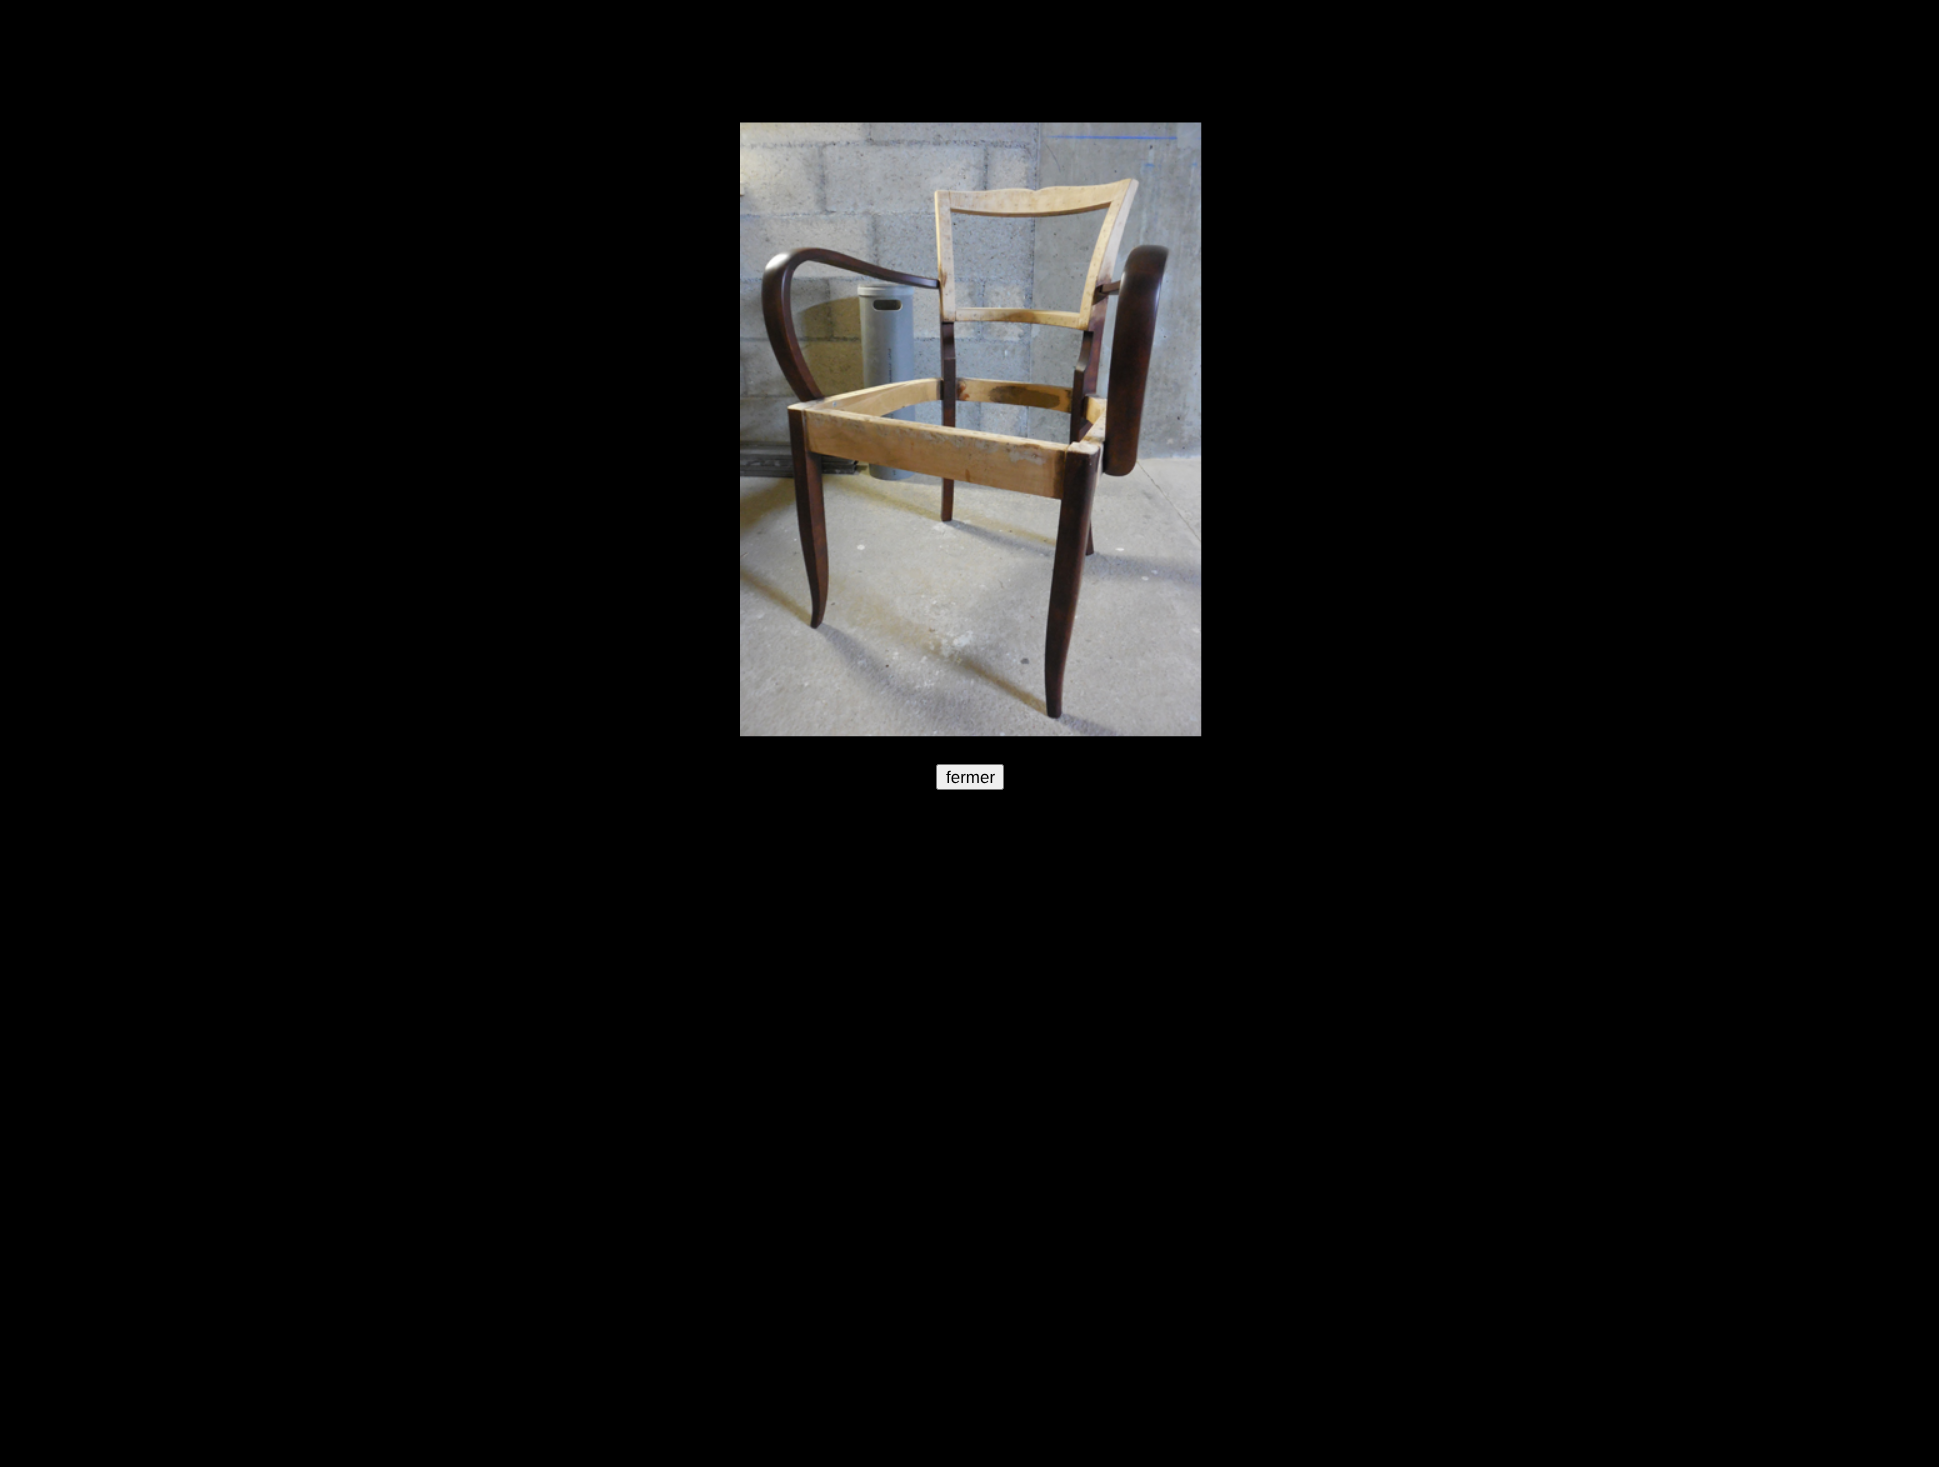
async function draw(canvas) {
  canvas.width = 1939;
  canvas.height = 1467;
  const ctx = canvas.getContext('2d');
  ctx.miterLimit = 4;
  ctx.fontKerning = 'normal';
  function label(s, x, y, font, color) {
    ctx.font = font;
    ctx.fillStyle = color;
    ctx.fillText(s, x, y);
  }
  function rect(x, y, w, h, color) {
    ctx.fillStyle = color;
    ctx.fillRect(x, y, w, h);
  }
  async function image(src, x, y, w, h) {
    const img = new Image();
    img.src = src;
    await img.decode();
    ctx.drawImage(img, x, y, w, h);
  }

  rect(0, 0, 1939, 1467, '#000');
  await image('assets/img1.png', 740, 122, 462, 615);
  ctx.fillStyle = '#efefef';
  ctx.beginPath();
  ctx.roundRect(936.5, 764.5, 67, 25, 2);
  ctx.fill();
  ctx.strokeStyle = '#767676';
  ctx.stroke();
  label('fermer', 946, 783, '17px Liberation Sans', '#000');
}

draw(document.querySelector('canvas'));
